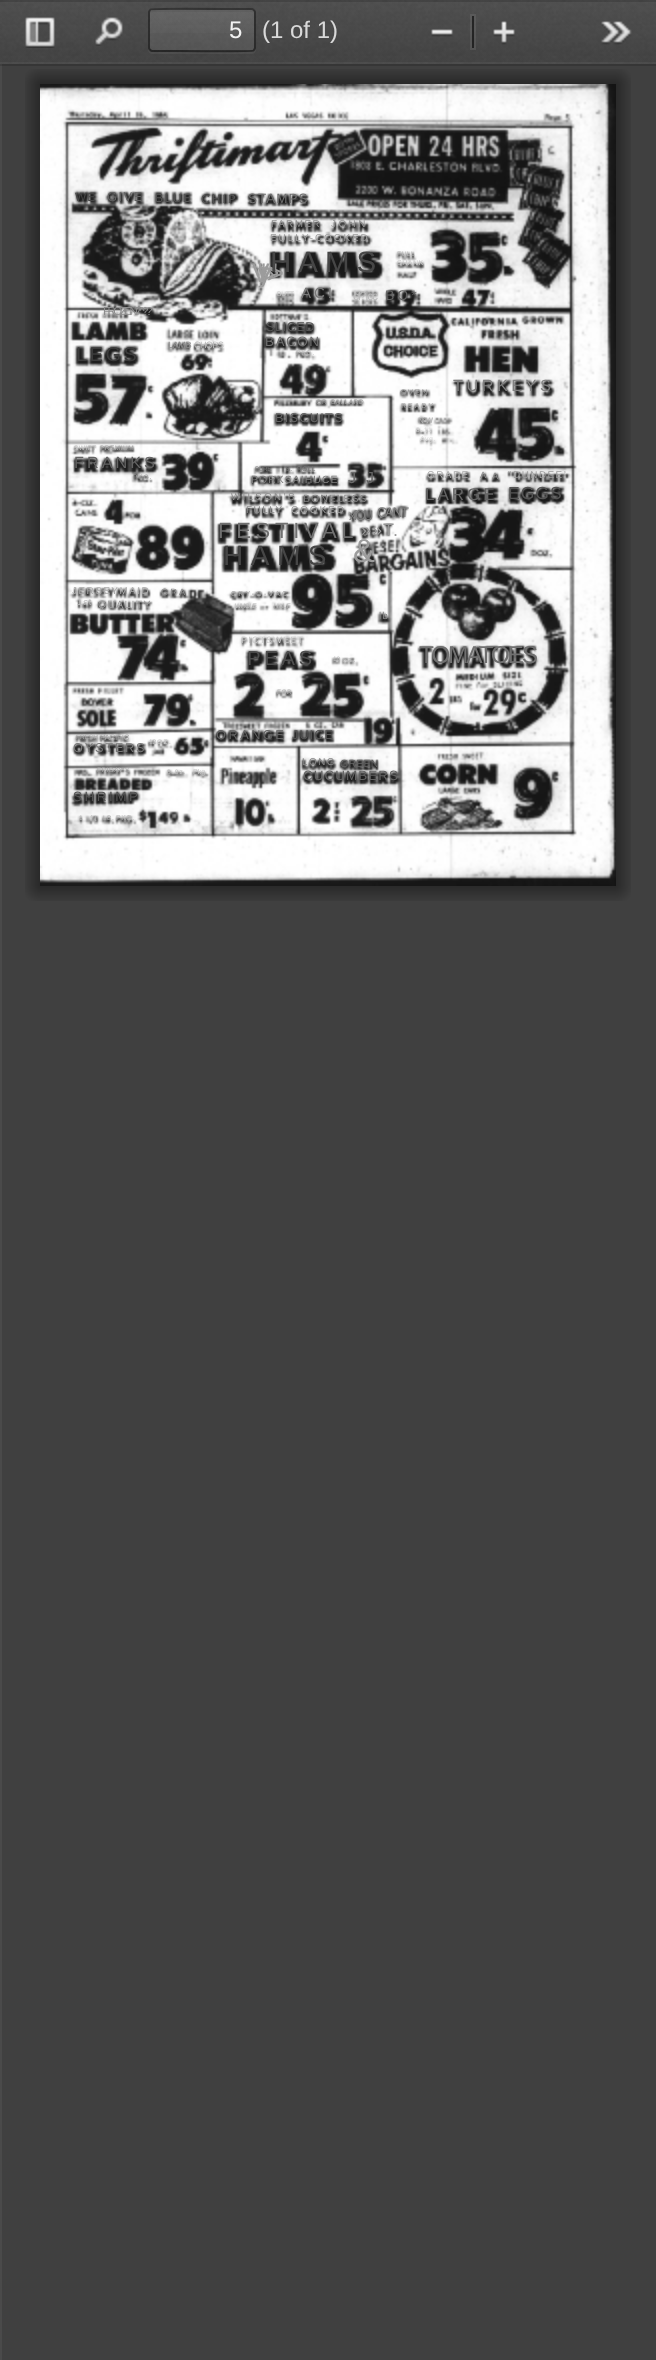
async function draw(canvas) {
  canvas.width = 656;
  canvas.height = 2360;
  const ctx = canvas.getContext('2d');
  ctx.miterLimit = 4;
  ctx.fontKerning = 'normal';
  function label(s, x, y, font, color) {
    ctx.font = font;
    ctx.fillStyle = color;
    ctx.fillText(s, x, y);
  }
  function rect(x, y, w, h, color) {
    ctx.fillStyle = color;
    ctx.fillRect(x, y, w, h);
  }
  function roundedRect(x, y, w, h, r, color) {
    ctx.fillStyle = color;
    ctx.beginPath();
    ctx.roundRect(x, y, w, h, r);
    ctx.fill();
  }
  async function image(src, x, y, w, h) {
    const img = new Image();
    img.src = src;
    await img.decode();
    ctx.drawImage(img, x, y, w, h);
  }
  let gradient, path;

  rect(0, 0, 656, 2360, '#404040');
  rect(0, 64, 2, 2296, '#4a4a4a');
  rect(0, 64, 656, 2, '#00000026');
  await image('assets/img1.png', 0, 0, 656, 64);
  rect(0, 62, 656, 2, '#ffffff0d');
  rect(0, 0, 656, 2, '#00000026');
  await image('assets/img2.png', 25, 17, 30, 31);
  await image('assets/img3.png', 95, 17, 28, 29);
  ctx.fillStyle = '#ffffff0d';
  path = new Path2D('M148 48V50C148 52 150 54 152 54H252C254 54 256 52 256 50V48C256 50 254 52 252 52H152C150 52 148 50 148 48Z');
  ctx.fill(path);
  roundedRect(150, 10, 104, 40, 2, '#ffffff17');
  gradient = ctx.createLinearGradient(202, 10, 202, 50);
  gradient.addColorStop(0, '#ffffff0d');
  gradient.addColorStop(1, '#ffffff00');
  ctx.fillStyle = gradient;
  ctx.fillRect(150, 10, 104, 23);
  ctx.fillStyle = '#0000000d';
  path = new Path2D('M152 12H252C253 12 254 13 254 14V12C254 11 253 10 252 10H152C151 10 150 11 150 12V14C150 13 151 12 152 12Z');
  ctx.fill(path);
  path = new Path2D('M150 10L150.5 9.5C152.5 8 226.5 9 235.5 9H252L254 10');
  ctx.strokeStyle = '#00000052';
  ctx.lineWidth = 2;
  ctx.stroke(path);
  path = new Path2D('M254 10L255 12V48L254 50');
  ctx.strokeStyle = '#00000061';
  ctx.stroke(path);
  path = new Path2D('M254 50L253.5 50.5C251.5 52 177.5 51 168.5 51H152L150 50');
  ctx.strokeStyle = '#0000006b';
  ctx.stroke(path);
  path = new Path2D('M150 50L149 48V12L150 10');
  ctx.strokeStyle = '#00000061';
  ctx.stroke(path);
  label('5', 229, 38, '24px Liberation Sans', '#f2f2f2');
  label('(1 of 1)', 262, 38, '24px Liberation Sans', '#d9d9d9');
  await image('assets/img4.png', 431, 29, 22, 8);
  ctx.strokeStyle = '#ffffff14';
  ctx.strokeRect(471, 15, 4, 34);
  rect(472, 16, 2, 32, '#00000080');
  await image('assets/img5.png', 493, 21, 22, 24);
  await image('assets/img6.png', 601, 21, 31, 24);
  await image('assets/img7.png', 25, 69, 606, 832);
  await image('assets/img8.png', 40, 84, 576, 802);
  ctx.letterSpacing = '1px';
  label('WE', 75, 201, '12px Liberation Sans', '#464646');
  ctx.letterSpacing = '1.5px';
  label('GIVE', 107, 201, '12.75px Liberation Sans', '#636363');
  label('BLUE', 155, 202, '12px Liberation Sans', '#545454');
  ctx.letterSpacing = '2px';
  label('CHIP', 201, 203, '12px Liberation Sans', '#545454');
  ctx.letterSpacing = '1px';
  label('STAMPS', 248, 203, '13.5px Liberation Sans', '#707070');
  ctx.letterSpacing = '1.5px';
  label('FARMER', 271, 227, '9.9px Liberation Sans', '#8d8d8d');
  ctx.letterSpacing = '2.5px';
  label('JOHN', 331, 227, '9.9px Liberation Sans', '#969696');
  ctx.letterSpacing = '2px';
  label('EULLY-COOKED', 270, 241, '9.9px Liberation Sans', '#9c9c9c');
  ctx.letterSpacing = '-11.25px';
  label('r\'V*y»>>\'', 260, 282, '27px Liberation Sans', '#9c9c9c');
  ctx.letterSpacing = '7px';
  label('HAMS', 270, 272, '29.5px Liberation Sans', '#464646');
  ctx.letterSpacing = '0.5px';
  label('FULL', 397, 256, '6.5px Liberation Sans', '#bababa');
  label('SHANK', 397, 265, '7px Liberation Sans', '#c9c9c9');
  ctx.letterSpacing = '0px';
  label('BUTT', 277, 296, '6.5px Liberation Sans', '#c9c9c9');
  ctx.letterSpacing = '3px';
  label('AC!', 301, 298, '15px Liberation Sans', '#797979');
  ctx.letterSpacing = '-1.25px';
  label('cf?Icc', 353, 300, '12px Liberation Sans', '#bababa');
  ctx.letterSpacing = '3px';
  label('BO*', 385, 300, '14px Liberation Sans', '#636363');
  ctx.letterSpacing = '-2.5px';
  label('FROZEN7^??', 103, 315, '11.5px Liberation Sans', '#8d8d8d');
  ctx.letterSpacing = '0.5px';
  label('SLICED', 266, 331, '12.75px Liberation Sans', '#545454');
  ctx.letterSpacing = '-0.5px';
  label('LAMB', 168, 348, '9.25px Liberation Sans', '#8d8d8d');
  ctx.letterSpacing = '-0.75px';
  label('CHOPS', 194, 348, '9.25px Liberation Sans', '#bababa');
  ctx.letterSpacing = '1.5px';
  label('BACON', 265, 346, '13.5px Liberation Sans', '#707070');
  ctx.letterSpacing = '2.5px';
  label('LEGS', 76, 361, '20px Liberation Sans', '#3c3c3c');
  ctx.letterSpacing = '0.5px';
  label('PKG.', 296, 355, '7px Liberation Sans', '#bababa');
  ctx.letterSpacing = '1.5px';
  label('OVEN', 400, 395, '8px Liberation Sans', '#969696');
  ctx.letterSpacing = '3.5px';
  label('TURKEYS', 453, 391, '16.25px Liberation Sans', '#7f7f7f');
  ctx.letterSpacing = '1px';
  label('OR', 316, 404, '6.5px Liberation Sans', '#9c9c9c');
  ctx.letterSpacing = '0.5px';
  label('BALLARD', 331, 404, '6.5px Liberation Sans', '#a2a2a2');
  ctx.letterSpacing = '2px';
  label('READY', 401, 408, '7px Liberation Sans', '#aaa');
  ctx.letterSpacing = '1.25px';
  label('BISCUITS', 275, 422, '12.75px Liberation Sans', '#636363');
  ctx.letterSpacing = '-1px';
  label('N^W', 418, 423, '8px Liberation Sans', '#b0b0b0');
  ctx.letterSpacing = '1px';
  label('8-11', 416, 432, '6.5px Liberation Sans', '#d9d9d9');
  ctx.letterSpacing = '0.5px';
  label('Avg.', 420, 441, '7px Liberation Sans', '#d9d9d9');
  label('SWIFT', 74, 450, '6.5px Liberation Sans', '#c0c0c0');
  label('PREMIUM', 100, 450, '6.5px Liberation Sans', '#aaa');
  ctx.letterSpacing = '3px';
  label('FRANKS', 74, 468, '16.25px Liberation Sans', '#636363');
  ctx.letterSpacing = '-0.5px';
  label('PURE', 255, 471, '6.5px Liberation Sans', '#797979');
  ctx.letterSpacing = '0px';
  label('B.', 286, 471, '6.5px Liberation Sans', '#797979');
  ctx.letterSpacing = '0.5px';
  label('ROLL', 297, 471, '6.5px Liberation Sans', '#797979');
  ctx.letterSpacing = '1px';
  label('PKG.', 133, 479, '6.5px Liberation Sans', '#9c9c9c');
  label('PORKSAIHUCE', 251, 483, '10.5px Liberation Sans', '#7f7f7f');
  ctx.letterSpacing = '9px';
  label('J', 348, 483, '16.25px Liberation Sans', '#6a6a6a');
  label('J', 366, 483, '16px Liberation Sans', '#636363');
  ctx.letterSpacing = '1.5px';
  label('GRADE', 427, 478, '9.9px Liberation Sans', '#aaa');
  ctx.letterSpacing = '2px';
  label('A', 480, 478, '9.25px Liberation Sans', '#8d8d8d');
  label('A', 492, 479, '9.25px Liberation Sans', '#8d8d8d');
  ctx.letterSpacing = '1.5px';
  label('"DUNDEE’', 508, 478, '9.9px Liberation Sans', '#9c9c9c');
  ctx.letterSpacing = '2.25px';
  label('WILSON’S', 231, 500, '9.9px Liberation Sans', '#8d8d8d');
  ctx.letterSpacing = '1px';
  label('BONELESS', 303, 502, '10.5px Liberation Sans', '#7f7f7f');
  ctx.letterSpacing = '3px';
  label('LARGE', 425, 500, '17px Liberation Sans', '#636363');
  ctx.letterSpacing = '1px';
  label('EGGS', 508, 499, '17.5px Liberation Sans', '#545454');
  ctx.letterSpacing = '1.5px';
  label('FULLY', 246, 513, '9.9px Liberation Sans', '#8d8d8d');
  ctx.letterSpacing = '2px';
  label('COOKED', 291, 513, '9.9px Liberation Sans', '#9c9c9c');
  ctx.letterSpacing = '-2.5px';
  label('xfOU', 349, 520, '14px Liberation Sans', '#7f7f7f');
  ctx.letterSpacing = '-2px';
  label('CANT', 377, 517, '14px Liberation Sans', '#7f7f7f');
  ctx.letterSpacing = '4.75px';
  label('FESTIVAL', 218, 538, '22px Liberation Sans', '#707070');
  ctx.letterSpacing = '1px';
  label('»»T.', 361, 536, '18px Liberation Sans', '#969696');
  ctx.letterSpacing = '7.5px';
  label('HAMS', 223, 565, '28px Liberation Sans', '#464646');
  ctx.letterSpacing = '48px';
  label('&', 353, 562, '33px Liberation Sans', '#9c9c9c');
  ctx.letterSpacing = '1px';
  label('.', 549, 555, '8px Liberation Sans', '#a2a2a2');
  ctx.letterSpacing = '1.5px';
  label('JERSEYMAID', 72, 594, '9.9px Liberation Sans', '#aaa');
  ctx.letterSpacing = '2px';
  label('GRA', 161, 595, '9.25px Liberation Sans', '#8d8d8d');
  ctx.letterSpacing = '2.25px';
  label('CRY-O-VAC', 231, 596, '7px Liberation Sans', '#aaa');
  ctx.letterSpacing = '1px';
  label('1st', 77, 605, '9.25px Liberation Sans', '#bababa');
  ctx.letterSpacing = '1.25px';
  label('QUALITY', 98, 608, '10.5px Liberation Sans', '#9c9c9c');
  ctx.letterSpacing = '-0.5px';
  label('WHOLE', 235, 608, '6.5px Liberation Sans', '#c0c0c0');
  ctx.letterSpacing = '0px';
  label('HALF', 274, 608, '6.5px Liberation Sans', '#bababa');
  ctx.letterSpacing = '1px';
  label('lb', 379, 619, '9.9px Liberation Sans', '#868686');
  label('PICTSWEET', 241, 643, '9.25px Liberation Sans', '#c9c9c9');
  ctx.letterSpacing = '3.5px';
  label('PEAS', 247, 665, '20.5px Liberation Sans', '#4e4e4e');
  ctx.letterSpacing = '0px';
  label('10', 333, 661, '6.5px Liberation Sans', '#bababa');
  ctx.letterSpacing = '2px';
  label('oz.', 342, 662, '7px Liberation Sans', '#bababa');
  ctx.letterSpacing = '-2.25px';
  label('TOMATOES', 419, 663, '24.5px Liberation Sans', '#707070');
  ctx.letterSpacing = '0.5px';
  label('FOR', 277, 694, '6.5px Liberation Sans', '#bababa');
  ctx.letterSpacing = '0px';
  label('FRESH', 76, 739, '6.5px Liberation Sans', '#aaa');
  ctx.letterSpacing = '-0.25px';
  label('PACIFIC', 100, 740, '8px Liberation Sans', '#aaa');
  ctx.letterSpacing = '2.5px';
  label('ORANGE', 216, 739, '12.75px Liberation Sans', '#636363');
  ctx.letterSpacing = '1px';
  label('JUICE', 292, 739, '12.75px Liberation Sans', '#545454');
  ctx.letterSpacing = '0px';
  label('12', 149, 744, '6.5px Liberation Sans', '#bababa');
  ctx.letterSpacing = '1.5px';
  label('OZ.', 157, 744, '6.5px Liberation Sans', '#c9c9c9');
  ctx.letterSpacing = '1.75px';
  label('OYSTERS', 73, 752, '12.75px Liberation Sans', '#797979');
  ctx.letterSpacing = '1.5px';
  label('LONG', 302, 765, '9.9px Liberation Sans', '#868686');
  ctx.letterSpacing = '0.25px';
  label('GREEN', 340, 767, '10.5px Liberation Sans', '#636363');
  ctx.letterSpacing = '0.5px';
  label('FRIDAY\'S', 97, 772, '6.5px Liberation Sans', '#aaa');
  ctx.letterSpacing = '1px';
  label('8-0z.', 167, 774, '6.5px Liberation Sans', '#c0c0c0');
  ctx.letterSpacing = '0px';
  label('Pkg', 193, 774, '7px Liberation Sans', '#c9c9c9');
  ctx.letterSpacing = '1px';
  label('CUCUMBERS', 303, 780, '13.5px Liberation Sans', '#636363');
  ctx.letterSpacing = '2.5px';
  label('SHRIMP', 73, 801, '13.5px Liberation Sans', '#545454');
  ctx.letterSpacing = '-1px';
  label('1', 79, 820, '6.5px Liberation Sans', '#bababa');
  ctx.letterSpacing = '2px';
  label('ft', 90, 821, '8px Liberation Sans', '#bababa');
  ctx.letterSpacing = '0.5px';
  label('LB.', 103, 820, '6.5px Liberation Sans', '#b0b0b0');
  label('PKG.', 116, 820, '7px Liberation Sans', '#bababa');
}

draw(document.querySelector('canvas'));
